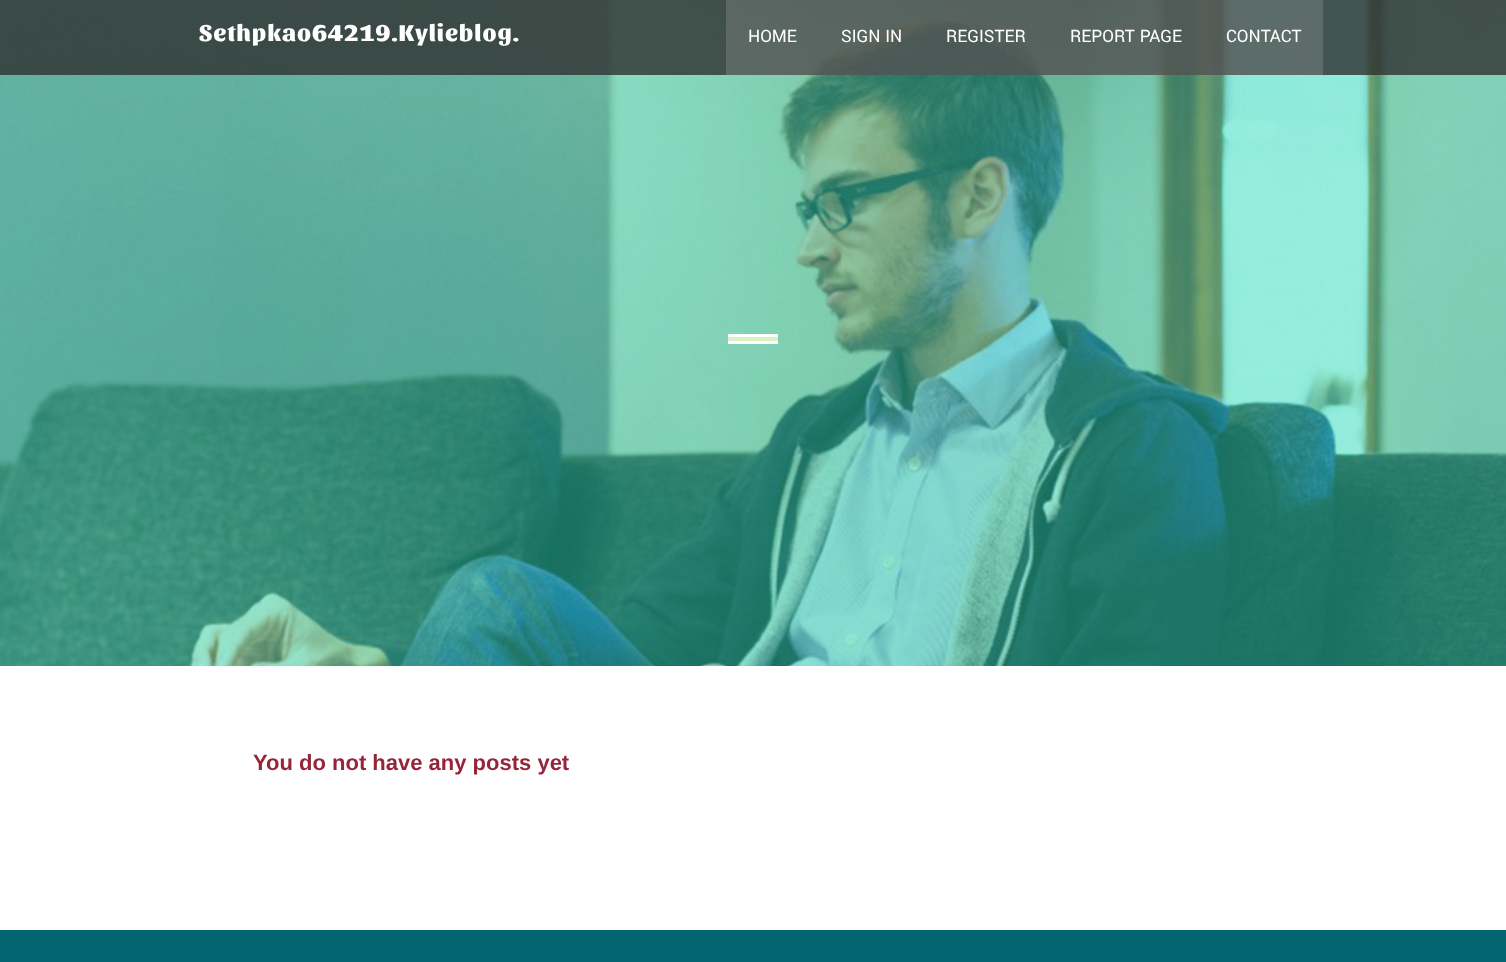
async function draw(canvas) {
  canvas.width = 1506;
  canvas.height = 962;
  const ctx = canvas.getContext('2d');
  ctx.miterLimit = 4;
  ctx.fontKerning = 'normal';
  function label(s, x, y, font, color) {
    ctx.font = font;
    ctx.fillStyle = color;
    ctx.fillText(s, x, y);
  }
  function rect(x, y, w, h, color) {
    ctx.fillStyle = color;
    ctx.fillRect(x, y, w, h);
  }
  async function image(src, x, y, w, h) {
    const img = new Image();
    img.src = src;
    await img.decode();
    ctx.drawImage(img, x, y, w, h);
  }

  rect(0, 0, 1506, 962, '#fff');
  await image('assets/img1.png', 0, 0, 1506, 666);
  rect(0, 0, 1506, 75, '#2f2f2fcc');
  ctx.letterSpacing = '1px';
  label('Sethpkao64219.Kylieblog.', 199, 41, '800 24px Sansita', '#fff');
  rect(726, 0, 93, 75, '#c7c7c733');
  ctx.letterSpacing = '0px';
  label('HOME', 748, 42, '19px Yantramanav', '#fff');
  rect(819, 0, 105, 75, '#c7c7c733');
  label('SIGN IN', 841, 42, '19px Yantramanav', '#fff');
  rect(924, 0, 124, 75, '#c7c7c733');
  label('REGISTER', 946, 42, '19px Yantramanav', '#fff');
  rect(1048, 0, 156, 75, '#c7c7c733');
  label('REPORT PAGE', 1070, 42, '19px Yantramanav', '#fff');
  rect(1204, 0, 119, 75, '#c7c7c733');
  label('CONTACT', 1226, 42, '19px Yantramanav', '#fff');
  rect(728, 337, 50, 4, '#ffffc7b3');
  rect(728, 334, 50, 3, '#fff');
  rect(728, 341, 50, 3, '#fff');
  label('You do not have any posts yet', 253, 770, 'bold 22px Liberation Sans', '#96243a');
  rect(0, 930, 1506, 32, '#00656e');
}

draw(document.querySelector('canvas'));
